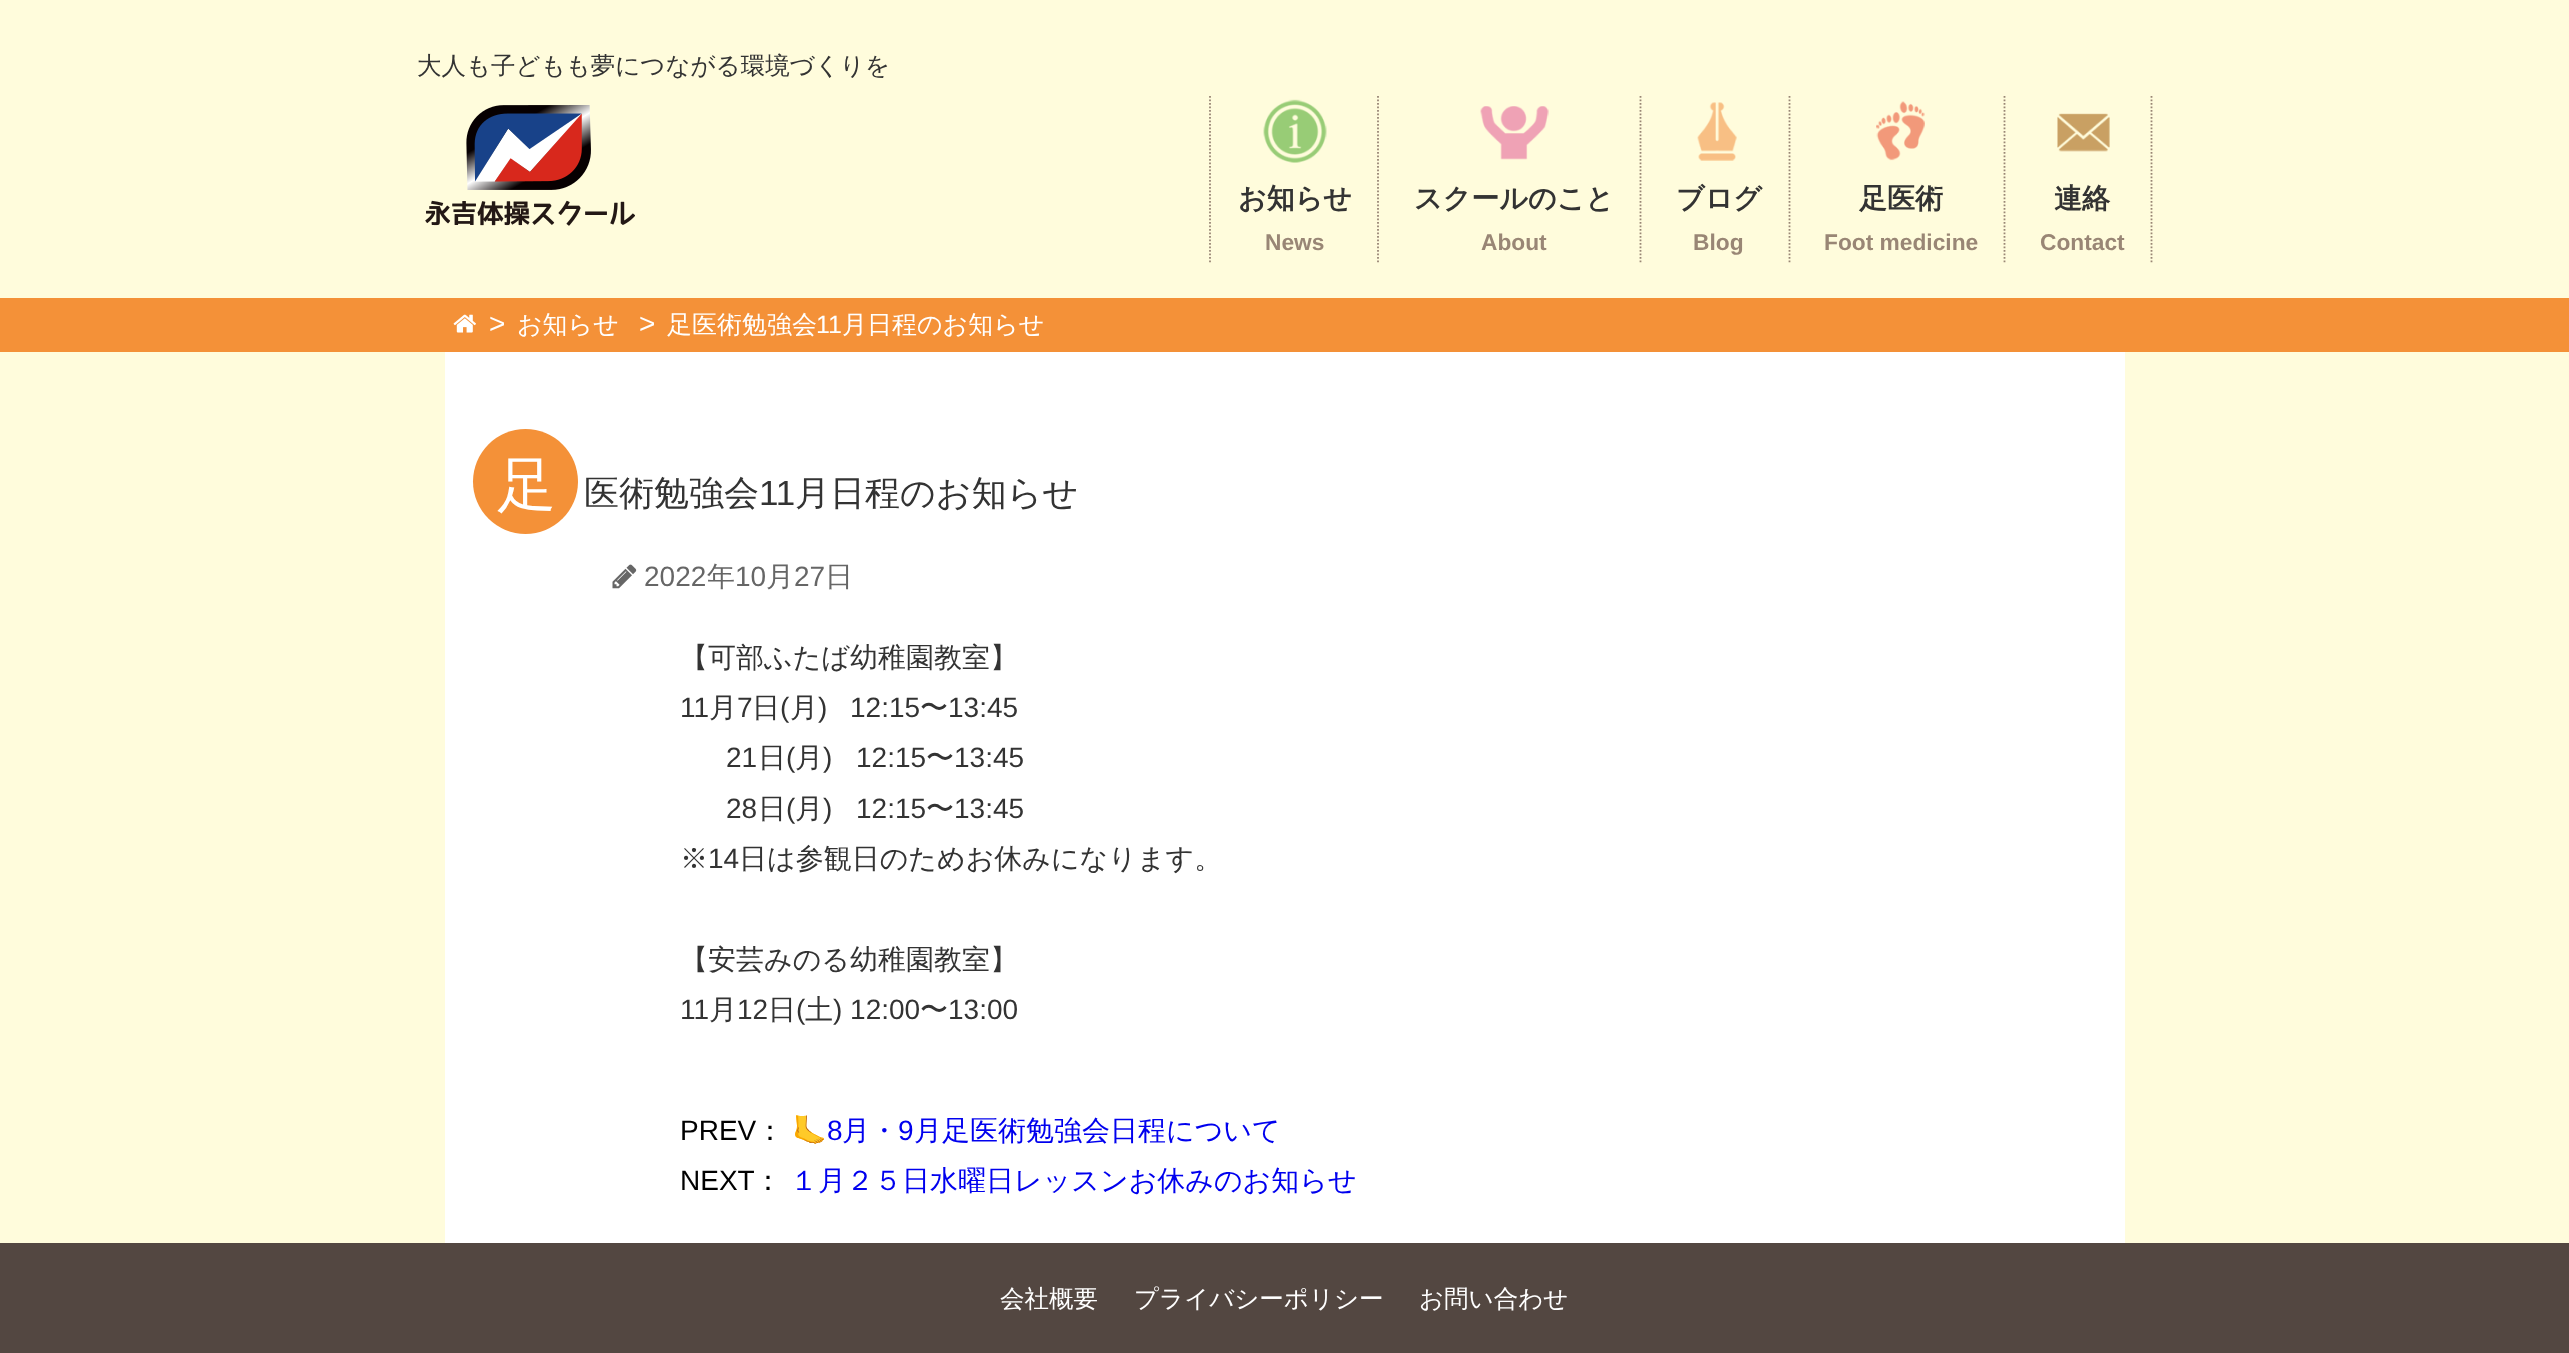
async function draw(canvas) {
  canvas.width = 2569;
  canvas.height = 1353;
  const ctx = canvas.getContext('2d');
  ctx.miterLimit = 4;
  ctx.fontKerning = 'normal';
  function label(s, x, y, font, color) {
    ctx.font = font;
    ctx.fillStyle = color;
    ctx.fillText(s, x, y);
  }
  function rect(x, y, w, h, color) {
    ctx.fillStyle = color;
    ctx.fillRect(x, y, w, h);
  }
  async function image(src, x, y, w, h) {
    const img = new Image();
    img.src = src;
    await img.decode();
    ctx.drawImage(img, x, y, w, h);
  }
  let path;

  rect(0, 0, 2569, 1353, '#fffcdc');
  label('大人も子どもも夢につながる環境づくりを', 417, 74, '500 24.5px WenQuanYi Zen Hei', '#333');
  await image('assets/img1.png', 425, 105, 210, 121);
  path = new Path2D('M1378 96V262.5');
  ctx.strokeStyle = '#998675';
  ctx.lineWidth = 1.8;
  ctx.setLineDash([1.75, 1.75]);
  ctx.stroke(path);
  path = new Path2D('M1210 96V262.5');
  ctx.stroke(path);
  await image('assets/img2.png', 1263, 99, 64, 64);
  label('お知らせ', 1238, 208, 'bold 28px WenQuanYi Zen Hei', '#333');
  label('News', 1265, 250, 'bold 22.75px Liberation Sans', '#998675');
  path = new Path2D('M1640.5 96V262.5');
  ctx.stroke(path);
  await image('assets/img3.png', 1480, 106, 69, 54);
  label('スクールのこと', 1414, 208, 'bold 28px WenQuanYi Zen Hei', '#333');
  label('About', 1481, 250, 'bold 22.75px Liberation Sans', '#998675');
  path = new Path2D('M1789.5 96V262.5');
  ctx.stroke(path);
  await image('assets/img4.png', 1697, 102, 40, 59);
  label('ブログ', 1676, 208, 'bold 28px WenQuanYi Zen Hei', '#333');
  label('Blog', 1693, 250, 'bold 22.75px Liberation Sans', '#998675');
  path = new Path2D('M2004.5 96V262.5');
  ctx.stroke(path);
  await image('assets/img5.png', 1876, 101, 49, 60);
  label('足医術', 1859, 208, 'bold 28px WenQuanYi Zen Hei', '#333');
  label('Foot medicine', 1824, 250, 'bold 22.75px Liberation Sans', '#998675');
  path = new Path2D('M2151.5 96V262.5');
  ctx.stroke(path);
  await image('assets/img6.png', 2057, 113, 53, 39);
  label('連絡', 2054, 208, 'bold 28px WenQuanYi Zen Hei', '#333');
  label('Contact', 2040, 250, 'bold 22.75px Liberation Sans', '#998675');
  rect(0, 298, 2569, 54, '#f49138');
  await image('assets/img7.png', 453, 314, 23, 19);
  label('>', 489, 333, '28px Liberation Sans', '#fff');
  label('お知らせ', 517, 333, '500 25px WenQuanYi Zen Hei', '#fff');
  label('>', 639, 333, '28px Liberation Sans', '#fff');
  label('足医術勉強会', 667, 333, '500 25px WenQuanYi Zen Hei', '#fff');
  label('11', 816, 333, '25px Liberation Sans', '#fff');
  label('月日程のお知らせ', 842, 333, '500 25px WenQuanYi Zen Hei', '#fff');
  rect(445, 352, 1680, 891, '#fff');
  ctx.fillStyle = '#f49138';
  ctx.beginPath();
  ctx.arc(525.5, 481.5, 52.5, 0, 2 * Math.PI);
  ctx.fill();
  label('足', 497, 505, '59px Noto Sans', '#fff');
  label('医術勉強会', 584, 505, '500 35px WenQuanYi Zen Hei', '#333');
  label('11', 759, 505, '35px Liberation Sans', '#333');
  label('月日程のお知らせ', 795, 505, '500 35px WenQuanYi Zen Hei', '#333');
  await image('assets/img8.png', 612, 564, 25, 25);
  label('2022', 644, 586, '28px Liberation Sans', '#666');
  label('年', 707, 586, '500 28px WenQuanYi Zen Hei', '#666');
  label('10', 735, 586, '28px Liberation Sans', '#666');
  label('月', 766, 586, '500 28px WenQuanYi Zen Hei', '#666');
  label('27', 794, 586, '28px Liberation Sans', '#666');
  label('日', 825, 586, '500 28px WenQuanYi Zen Hei', '#666');
  label('【可部ふたば幼稚園教室】', 680, 667, '500 28px WenQuanYi Zen Hei', '#333');
  label('11', 680, 717, '28px Liberation Sans', '#333');
  label('月', 709, 717, '500 28px WenQuanYi Zen Hei', '#333');
  label('7', 737, 717, '28px Liberation Sans', '#333');
  label('日', 752, 717, '500 28px WenQuanYi Zen Hei', '#333');
  label('(', 780, 717, '28px Liberation Sans', '#333');
  label('月', 790, 717, '500 28px WenQuanYi Zen Hei', '#333');
  label(')', 818, 717, '28px Liberation Sans', '#333');
  label('12:15', 850, 717, '28px Liberation Sans', '#333');
  label('〜', 920, 717, '500 28px WenQuanYi Zen Hei', '#333');
  label('13:45', 948, 717, '28px Liberation Sans', '#333');
  label('21', 726, 767, '28px Liberation Sans', '#333');
  label('日', 758, 767, '500 28px WenQuanYi Zen Hei', '#333');
  label('(', 786, 767, '28px Liberation Sans', '#333');
  label('月', 795, 767, '500 28px WenQuanYi Zen Hei', '#333');
  label(')', 823, 767, '28px Liberation Sans', '#333');
  label('12:15', 856, 767, '28px Liberation Sans', '#333');
  label('〜', 926, 767, '500 28px WenQuanYi Zen Hei', '#333');
  label('13:45', 954, 767, '28px Liberation Sans', '#333');
  label('28', 726, 818, '28px Liberation Sans', '#333');
  label('日', 758, 818, '500 28px WenQuanYi Zen Hei', '#333');
  label('(', 786, 818, '28px Liberation Sans', '#333');
  label('月', 795, 818, '500 28px WenQuanYi Zen Hei', '#333');
  label(')', 823, 818, '28px Liberation Sans', '#333');
  label('12:15', 856, 818, '28px Liberation Sans', '#333');
  label('〜', 926, 818, '500 28px WenQuanYi Zen Hei', '#333');
  label('13:45', 954, 818, '28px Liberation Sans', '#333');
  label('※', 680, 868, '500 28px WenQuanYi Zen Hei', '#333');
  label('14', 708, 868, '28px Liberation Sans', '#333');
  label('日は参観日のためお休みになります。', 739, 868, '500 28px WenQuanYi Zen Hei', '#333');
  label('【安芸みのる幼稚園教室】', 680, 969, '500 28px WenQuanYi Zen Hei', '#333');
  label('11', 680, 1019, '28px Liberation Sans', '#333');
  label('月', 709, 1019, '500 28px WenQuanYi Zen Hei', '#333');
  label('12', 737, 1019, '28px Liberation Sans', '#333');
  label('日', 768, 1019, '500 28px WenQuanYi Zen Hei', '#333');
  label('(', 796, 1019, '28px Liberation Sans', '#333');
  label('土', 805, 1019, '500 28px WenQuanYi Zen Hei', '#333');
  label(') 12:00', 833, 1019, '28px Liberation Sans', '#333');
  label('〜', 920, 1019, '500 28px WenQuanYi Zen Hei', '#333');
  label('13:00', 948, 1019, '28px Liberation Sans', '#333');
  label('PREV', 680, 1140, '28px Liberation Sans', '#000');
  label('：', 756, 1140, '500 28px WenQuanYi Zen Hei', '#000');
  label('🦶', 792, 1140, '28px Noto Color Emoji', '#00e');
  label('8', 827, 1140, '28px Liberation Sans', '#00e');
  label('月・', 842, 1140, '500 28px WenQuanYi Zen Hei', '#00e');
  label('9', 898, 1140, '28px Liberation Sans', '#00e');
  label('月足医術勉強会日程について', 914, 1140, '500 28px WenQuanYi Zen Hei', '#00e');
  label('NEXT', 680, 1190, '28px Liberation Sans', '#000');
  label('：', 754, 1190, '500 28px WenQuanYi Zen Hei', '#000');
  label('１月２５日水曜日レッスンお休みのお知らせ', 790, 1190, '500 28px WenQuanYi Zen Hei', '#00e');
  rect(0, 1243, 2569, 110, '#534741');
  label('会社概要', 1000, 1307, '500 24.5px WenQuanYi Zen Hei', '#fff');
  label('プライバシーポリシー', 1134, 1307, '500 24.5px WenQuanYi Zen Hei', '#fff');
  label('お問い合わせ', 1419, 1307, '500 24.5px WenQuanYi Zen Hei', '#fff');
}

draw(document.querySelector('canvas'));
